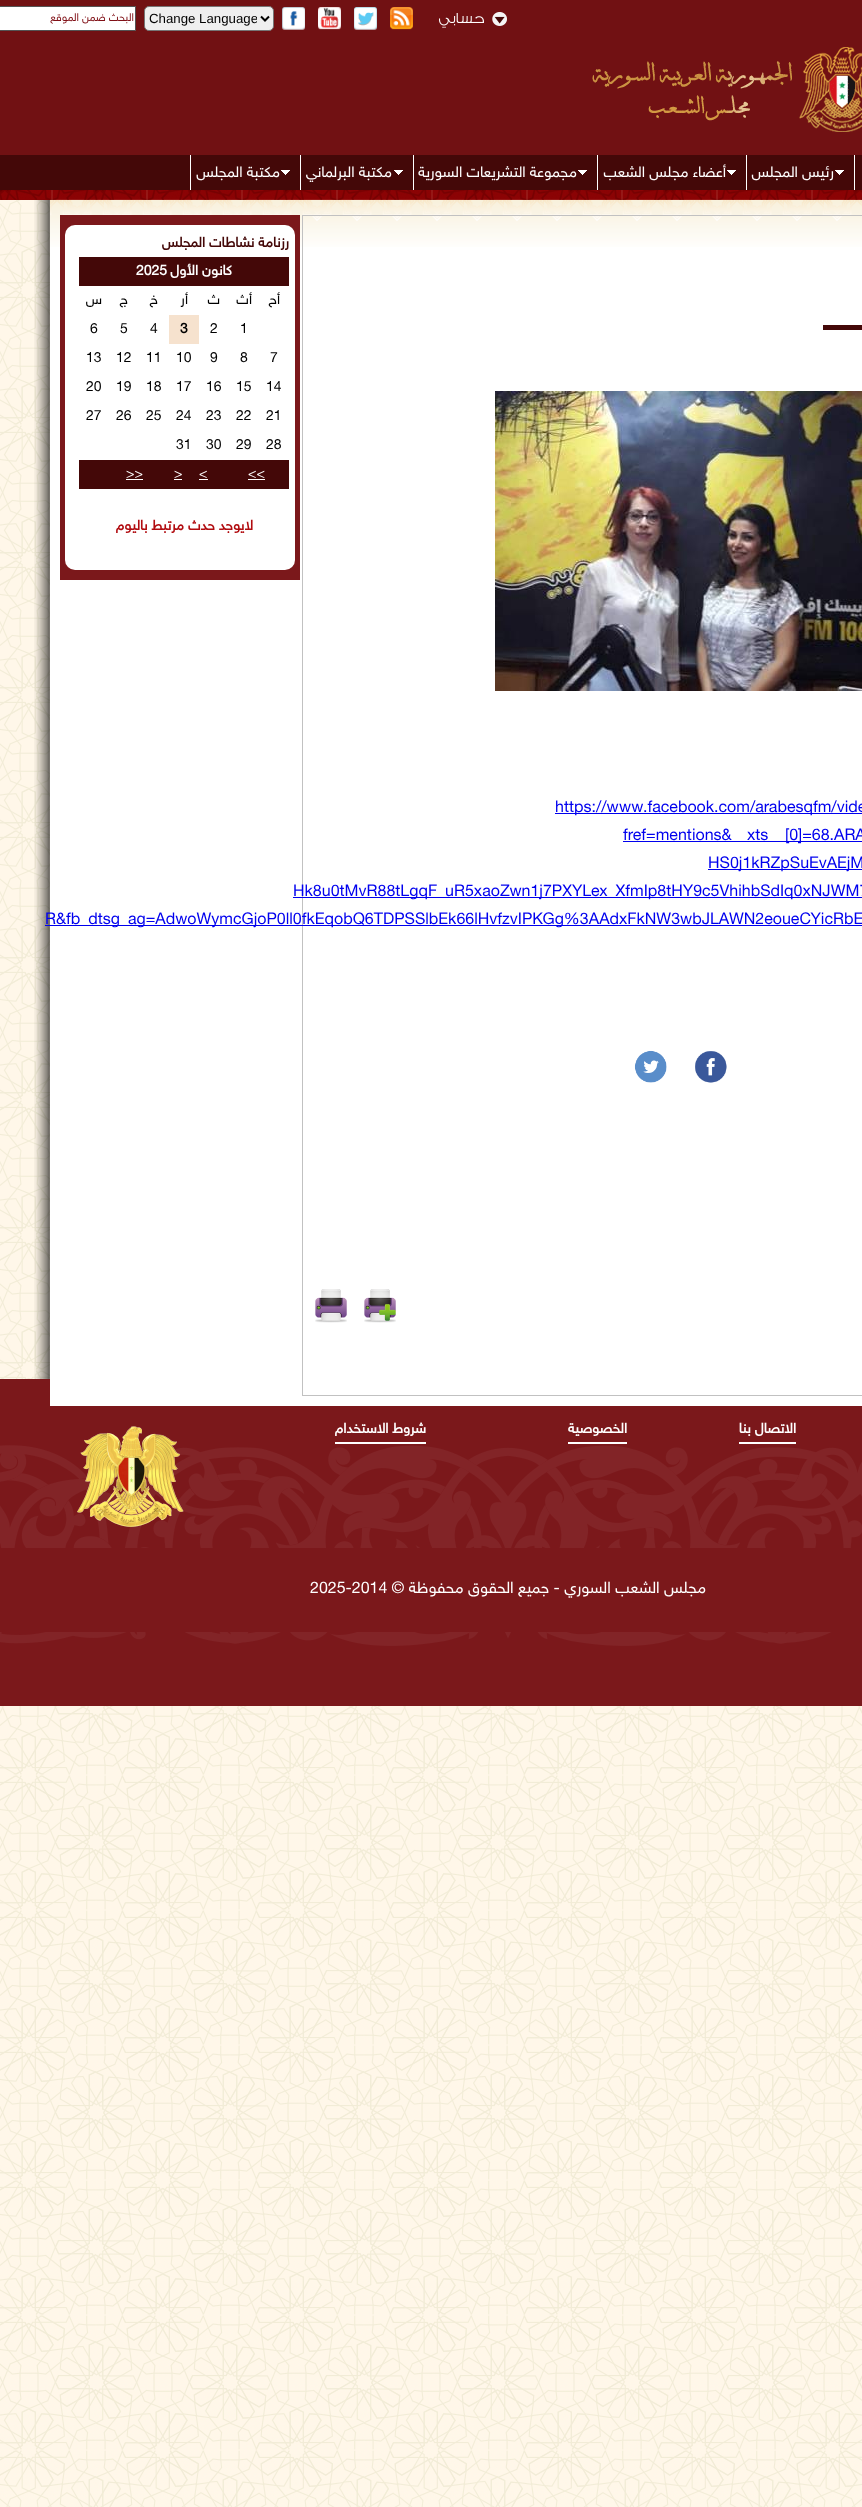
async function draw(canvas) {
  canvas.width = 862;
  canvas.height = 2507;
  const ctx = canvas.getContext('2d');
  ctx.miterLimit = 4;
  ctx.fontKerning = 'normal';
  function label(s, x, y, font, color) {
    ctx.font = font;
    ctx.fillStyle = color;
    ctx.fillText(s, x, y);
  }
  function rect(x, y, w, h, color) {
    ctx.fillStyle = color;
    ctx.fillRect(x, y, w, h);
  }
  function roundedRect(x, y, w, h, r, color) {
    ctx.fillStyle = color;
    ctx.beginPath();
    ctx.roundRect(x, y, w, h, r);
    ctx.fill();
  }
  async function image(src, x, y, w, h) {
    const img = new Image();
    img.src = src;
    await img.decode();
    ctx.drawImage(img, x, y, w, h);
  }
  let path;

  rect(0, 0, 862, 2507, '#fff7e9');
  await image('assets/img1.png', 0, 200, 862, 2307);
  rect(0, 0, 862, 200, '#711113');
  ctx.fillStyle = '#fff';
  ctx.beginPath();
  ctx.rect(-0.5, 6.5, 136, 24);
  ctx.fill();
  ctx.strokeStyle = '#545454';
  ctx.stroke();
  ctx.direction = 'rtl';
  label('البحث ضمن الموقع', 134, 21, '11px "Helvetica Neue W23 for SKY"', '#811118');
  ctx.fillStyle = '#efefef';
  ctx.beginPath();
  ctx.roundRect(144.5, 6.5, 129, 24, 4.5);
  ctx.fill();
  ctx.strokeStyle = '#767676';
  ctx.stroke();
  path = new Path2D('M261 16.5L265 20.5L269 16.5');
  ctx.strokeStyle = '#000';
  ctx.lineWidth = 2;
  ctx.stroke(path);
  ctx.save();
  ctx.beginPath();
  ctx.rect(149, 10, 108, 17);
  ctx.clip();
  ctx.direction = 'ltr';
  label('Change Language', 149, 23, '13.25px Liberation Sans', '#000');
  ctx.restore();
  await image('assets/img2.png', 282, 7, 23, 23);
  await image('assets/img3.png', 318, 7, 23, 23);
  await image('assets/img4.png', 354, 7, 23, 23);
  await image('assets/img5.png', 390, 7, 23, 23);
  await image('assets/img6.png', 439, 12, 68, 16);
  await image('assets/img7.png', 0, 47, 862, 108);
  await image('assets/img10.png', 34, 199, 16, 1180);
  await image('assets/img17.png', 0, 1379, 862, 327);
  rect(50, 190, 812, 1216, '#fff');
  await image('assets/img11.png', 50, 190, 812, 57);
  await image('assets/img8.png', 0, 190, 862, 10);
  rect(0, 155, 862, 35, '#440808');
  await image('assets/img9.png', 281, 170, 9, 5);
  rect(190, 155, 1, 35, '#fff');
  label('مكتبة المجلس', 280, 177, '15px "Helvetica Neue W23 for SKY"', '#fff');
  await image('assets/img9.png', 394, 170, 9, 5);
  rect(300, 155, 1, 35, '#fff');
  label('مكتبة البرلماني', 392, 177, '15px "Helvetica Neue W23 for SKY"', '#fff');
  await image('assets/img9.png', 578, 170, 9, 5);
  rect(413, 155, 1, 35, '#fff');
  label('مجموعة التشريعات السورية', 577, 177, '15px "Helvetica Neue W23 for SKY"', '#fff');
  await image('assets/img9.png', 727, 170, 9, 5);
  rect(597, 155, 1, 35, '#fff');
  label('أعضاء مجلس الشعب', 726, 177, '15px "Helvetica Neue W23 for SKY"', '#fff');
  await image('assets/img9.png', 835, 170, 9, 5);
  rect(746, 155, 1, 35, '#fff');
  label('رئيس المجلس', 834, 177, '15px "Helvetica Neue W23 for SKY"', '#fff');
  rect(854, 155, 1, 35, '#fff');
  rect(60, 215, 240, 365, '#7b181b');
  roundedRect(65, 225, 230, 345, 10, '#fff');
  label('رزنامة نشاطات المجلس', 289, 247, 'bold 14px "Helvetica Neue W23 for SKY"', '#440808');
  rect(79, 257, 210, 29, '#440808');
  ctx.direction = 'ltr';
  label('2025', 136, 275, 'bold 14px "Helvetica Neue W23 for SKY"', '#fff');
  ctx.direction = 'rtl';
  label('كانون الأول', 232, 275, 'bold 14px "Helvetica Neue W23 for SKY"', '#fff');
  label('س', 102, 304, '14px "Helvetica Neue W23 for SKY"', '#000');
  label('ج', 128, 304, '14px "Helvetica Neue W23 for SKY"', '#000');
  label('خ', 158, 304, '14px "Helvetica Neue W23 for SKY"', '#000');
  label('أر', 188, 304, '14px "Helvetica Neue W23 for SKY"', '#000');
  label('ث', 220, 304, '14px "Helvetica Neue W23 for SKY"', '#000');
  label('أث', 252, 304, '14px "Helvetica Neue W23 for SKY"', '#000');
  label('أح', 280, 304, '14px "Helvetica Neue W23 for SKY"', '#000');
  ctx.direction = 'ltr';
  label('6', 90, 333, '14px "Helvetica Neue W23 for SKY"', '#000');
  label('5', 120, 333, '14px "Helvetica Neue W23 for SKY"', '#000');
  label('4', 150, 333, '14px "Helvetica Neue W23 for SKY"', '#000');
  rect(169, 315, 30, 29, '#f6e2ce');
  label('3', 180, 333, 'bold 14px "Helvetica Neue W23 for SKY"', '#000');
  label('2', 210, 333, '14px "Helvetica Neue W23 for SKY"', '#000');
  label('1', 240, 333, '14px "Helvetica Neue W23 for SKY"', '#000');
  label('13', 86, 362, '14px "Helvetica Neue W23 for SKY"', '#000');
  label('12', 116, 362, '14px "Helvetica Neue W23 for SKY"', '#000');
  label('11', 146, 362, '14px "Helvetica Neue W23 for SKY"', '#000');
  label('10', 176, 362, '14px "Helvetica Neue W23 for SKY"', '#000');
  label('9', 210, 362, '14px "Helvetica Neue W23 for SKY"', '#000');
  label('8', 240, 362, '14px "Helvetica Neue W23 for SKY"', '#000');
  label('7', 270, 362, '14px "Helvetica Neue W23 for SKY"', '#000');
  label('20', 86, 391, '14px "Helvetica Neue W23 for SKY"', '#000');
  label('19', 116, 391, '14px "Helvetica Neue W23 for SKY"', '#000');
  label('18', 146, 391, '14px "Helvetica Neue W23 for SKY"', '#000');
  label('17', 176, 391, '14px "Helvetica Neue W23 for SKY"', '#000');
  label('16', 206, 391, '14px "Helvetica Neue W23 for SKY"', '#000');
  label('15', 236, 391, '14px "Helvetica Neue W23 for SKY"', '#000');
  label('14', 266, 391, '14px "Helvetica Neue W23 for SKY"', '#000');
  label('27', 86, 420, '14px "Helvetica Neue W23 for SKY"', '#000');
  label('26', 116, 420, '14px "Helvetica Neue W23 for SKY"', '#000');
  label('25', 146, 420, '14px "Helvetica Neue W23 for SKY"', '#000');
  label('24', 176, 420, '14px "Helvetica Neue W23 for SKY"', '#000');
  label('23', 206, 420, '14px "Helvetica Neue W23 for SKY"', '#000');
  label('22', 236, 420, '14px "Helvetica Neue W23 for SKY"', '#000');
  label('21', 266, 420, '14px "Helvetica Neue W23 for SKY"', '#000');
  label('31', 176, 449, '14px "Helvetica Neue W23 for SKY"', '#000');
  label('30', 206, 449, '14px "Helvetica Neue W23 for SKY"', '#000');
  label('29', 236, 449, '14px "Helvetica Neue W23 for SKY"', '#000');
  label('28', 266, 449, '14px "Helvetica Neue W23 for SKY"', '#000');
  rect(79, 460, 210, 29, '#440808');
  label('>>', 126, 478, '14px "Helvetica Neue W23 for SKY"', '#fff');
  rect(126, 479, 17, 1, '#fff');
  label('>', 174, 478, '14px "Helvetica Neue W23 for SKY"', '#fff');
  rect(174, 479, 8, 1, '#fff');
  label('<', 199, 478, '14px "Helvetica Neue W23 for SKY"', '#fff');
  rect(199, 479, 9, 1, '#fff');
  label('<<', 248, 478, '14px "Helvetica Neue W23 for SKY"', '#fff');
  rect(248, 479, 17, 1, '#fff');
  ctx.direction = 'rtl';
  label('لايوجد حدث مرتبط باليوم', 253, 530, 'bold 14px "Helvetica Neue W23 for SKY"', '#b10c10');
  ctx.strokeStyle = '#c1c1c1';
  ctx.lineWidth = 1;
  ctx.strokeRect(302.5, 215.5, 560, 1180);
  rect(823, 325, 39, 5, '#440808');
  await image('assets/img12.png', 495, 391, 367, 300);
  rect(555, 813, 307, 1, '#00e');
  ctx.direction = 'ltr';
  label('https://www.facebook.com/arabesqfm/vide', 555, 812, '16px "Helvetica Neue W23 for SKY"', '#00e');
  label('fref=mentions&', 623, 840, '16px "Helvetica Neue W23 for SKY"', '#00e');
  label('xts', 747, 840, '16px "Helvetica Neue W23 for SKY"', '#00e');
  rect(623, 841, 239, 1, '#00e');
  label('[0]=68.ARA', 785, 840, '16px "Helvetica Neue W23 for SKY"', '#00e');
  rect(708, 869, 154, 1, '#00e');
  label('HS0j1kRZpSuEvAEjM', 708, 868, '16px "Helvetica Neue W23 for SKY"', '#00e');
  rect(293, 897, 569, 1, '#00e');
  label('Hk8u0tMvR88tLgqF_uR5xaoZwn1j7PXYLex_XfmIp8tHY9c5VhihbSdIq0xNJWM7', 293, 896, '16px "Helvetica Neue W23 for SKY"', '#00e');
  rect(45, 925, 817, 1, '#00e');
  label('R&fb_dtsg_ag=AdwoWymcGjoP0ll0fkEqobQ6TDPSSlbEk66lHvfzvIPKGg%3AAdxFkNW3wbJLAWN2eoueCYicRbE', 45, 924, '16px "Helvetica Neue W23 for SKY"', '#00e');
  await image('assets/img13.png', 634, 1050, 33, 33);
  await image('assets/img14.png', 695, 1051, 32, 32);
  await image('assets/img15.png', 315, 1289, 32, 34);
  await image('assets/img16.png', 364, 1289, 32, 34);
  await image('assets/img18.png', 77, 1426, 107, 101);
  ctx.direction = 'rtl';
  label('شروط الاستخدام', 426, 1433, 'bold 14px "Helvetica Neue W23 for SKY"', '#fff');
  rect(335, 1442, 91, 2, '#fff');
  label('الخصوصية', 627, 1433, 'bold 14px "Helvetica Neue W23 for SKY"', '#fff');
  rect(568, 1442, 59, 2, '#fff');
  label('الاتصال بنا', 796, 1433, 'bold 14px "Helvetica Neue W23 for SKY"', '#fff');
  rect(739, 1442, 57, 2, '#fff');
  rect(0, 1548, 862, 84, '#7b181b');
  ctx.direction = 'ltr';
  label('2025-2014', 310, 1593, '16px "Helvetica Neue W23 for SKY"', '#fff');
  ctx.direction = 'rtl';
  label('مجلس الشعب السوري - جميع الحقوق محفوظة ©', 706, 1593, '16px "Helvetica Neue W23 for SKY"', '#fff');
}

draw(document.querySelector('canvas'));
